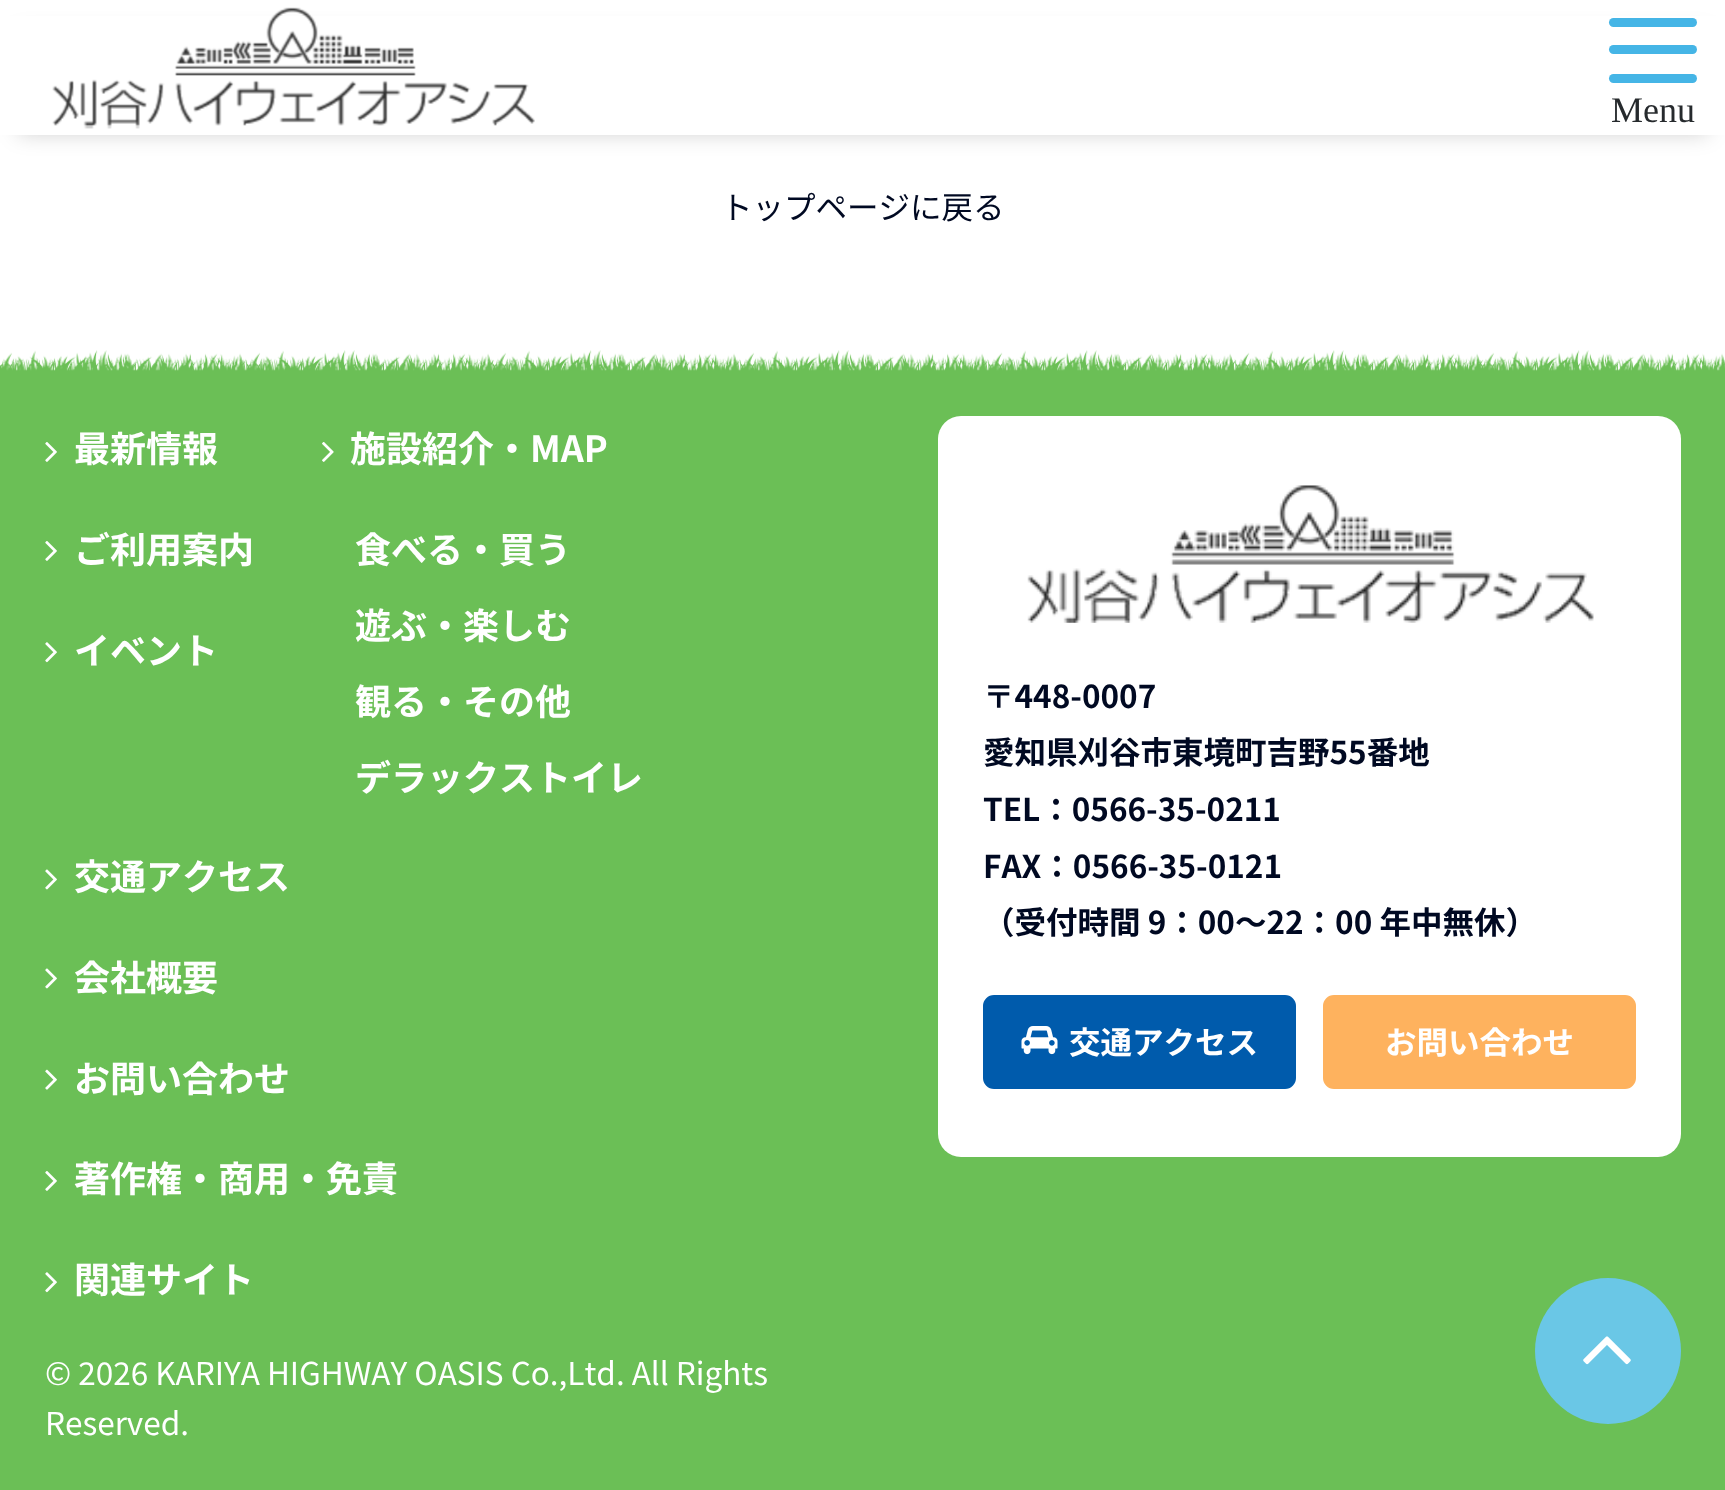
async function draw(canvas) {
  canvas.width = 1725;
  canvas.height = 1490;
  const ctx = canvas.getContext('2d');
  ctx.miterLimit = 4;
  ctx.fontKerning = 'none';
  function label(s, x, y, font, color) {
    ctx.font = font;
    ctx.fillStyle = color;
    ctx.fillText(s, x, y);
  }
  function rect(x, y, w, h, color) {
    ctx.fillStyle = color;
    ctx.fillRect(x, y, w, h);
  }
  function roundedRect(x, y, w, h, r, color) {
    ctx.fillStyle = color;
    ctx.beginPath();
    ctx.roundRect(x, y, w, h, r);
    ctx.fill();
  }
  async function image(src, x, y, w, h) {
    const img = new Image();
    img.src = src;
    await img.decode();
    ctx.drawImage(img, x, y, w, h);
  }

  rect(0, 0, 1725, 1490, '#fff');
  ctx.fillStyle = '#00000033';
  ctx.filter = 'blur(11px)';
  ctx.beginPath();
  ctx.rect(18, 34, 1690, 99);
  ctx.fill();
  ctx.filter = 'none';
  rect(0, 16, 1725, 119, '#fff');
  await image('assets/img1.png', 52, 7, 483, 122);
  roundedRect(1609, 18, 88, 9, 4.5, '#45b5e6');
  roundedRect(1609, 45, 88, 9, 4.5, '#45b5e6');
  roundedRect(1609, 74, 88, 9, 4.5, '#45b5e6');
  label('Menu', 1611, 122, '36px Liberation Serif', '#262a2d');
  label('トップページに戻る', 721, 219, '31.5px Noto Sans JP', '#000922');
  rect(0, 371, 1725, 1119, '#6bbf56');
  await image('assets/img2.png', 0, 350, 1725, 21);
  await image('assets/img3.png', 45, 442, 12, 20);
  label('最新情報', 74, 462, 'bold 36px Noto Sans JP', '#fff');
  await image('assets/img3.png', 45, 541, 12, 20);
  label('ご利用案内', 74, 563, 'bold 36px Noto Sans JP', '#fff');
  await image('assets/img4.png', 45, 642, 12, 21);
  label('イベント', 74, 664, 'bold 36px Noto Sans JP', '#fff');
  await image('assets/img5.png', 322, 442, 12, 20);
  label('施設紹介・MAP', 350, 462, 'bold 36px Noto Sans JP', '#fff');
  label('食べる・買う', 355, 563, 'bold 36px Noto Sans JP', '#fff');
  label('遊ぶ・楽しむ', 355, 639, 'bold 36px Noto Sans JP', '#fff');
  label('観る・その他', 355, 715, 'bold 36px Noto Sans JP', '#fff');
  label('デラックストイレ', 355, 791, 'bold 36px Noto Sans JP', '#fff');
  await image('assets/img6.png', 45, 869, 12, 21);
  label('交通アクセス', 74, 890, 'bold 36px Noto Sans JP', '#fff');
  await image('assets/img6.png', 45, 968, 12, 21);
  label('会社概要', 74, 991, 'bold 36px Noto Sans JP', '#fff');
  await image('assets/img7.png', 45, 1069, 12, 21);
  label('お問い合わせ', 74, 1092, 'bold 36px Noto Sans JP', '#fff');
  await image('assets/img3.png', 45, 1171, 12, 20);
  label('著作権・商用・免責', 74, 1192, 'bold 36px Noto Sans JP', '#fff');
  await image('assets/img4.png', 45, 1272, 12, 21);
  label('関連サイト', 74, 1293, 'bold 36px Noto Sans JP', '#fff');
  label('© 2026 KARIYA HIGHWAY OASIS Co.,Ltd. All Rights', 45, 1385, '31.5px Noto Sans JP', '#fff');
  label('Reserved.', 45, 1435, '31.5px Noto Sans JP', '#fff');
  roundedRect(938, 416, 743, 741, 23, '#fff');
  await image('assets/img8.png', 1027, 485, 567, 138);
  label('〒448-0007', 983, 708, 'bold 31.5px Noto Sans JP', '#000922');
  label('愛知県刈谷市東境町吉野55番地', 983, 764, 'bold 31.5px Noto Sans JP', '#000922');
  label('TEL：0566-35-0211', 983, 821, 'bold 31.5px Noto Sans JP', '#000922');
  label('FAX：0566-35-0121', 983, 878, 'bold 31.5px Noto Sans JP', '#000922');
  label('（受付時間 9：00～22：00 年中無休）', 983, 934, 'bold 31.5px Noto Sans JP', '#000922');
  ctx.fillStyle = '#005bac';
  ctx.beginPath();
  ctx.roundRect(984, 996, 311, 92, 10);
  ctx.fill();
  ctx.strokeStyle = '#005bac';
  ctx.lineWidth = 2;
  ctx.stroke();
  await image('assets/img9.png', 1021, 1026, 37, 29);
  label('交通アクセス', 1069, 1054, 'bold 31.5px Noto Sans JP', '#fff');
  ctx.fillStyle = '#feb25e';
  ctx.beginPath();
  ctx.roundRect(1324, 996, 311, 92, 10);
  ctx.fill();
  ctx.strokeStyle = '#feb25e';
  ctx.stroke();
  label('お問い合わせ', 1385, 1054, 'bold 31.5px Noto Sans JP', '#fff');
  ctx.fillStyle = '#6ac7e6';
  ctx.beginPath();
  ctx.arc(1608, 1351, 73, 0, 2 * Math.PI);
  ctx.fill();
  await image('assets/img10.png', 1583, 1336, 48, 29);
}

draw(document.querySelector('canvas'));
